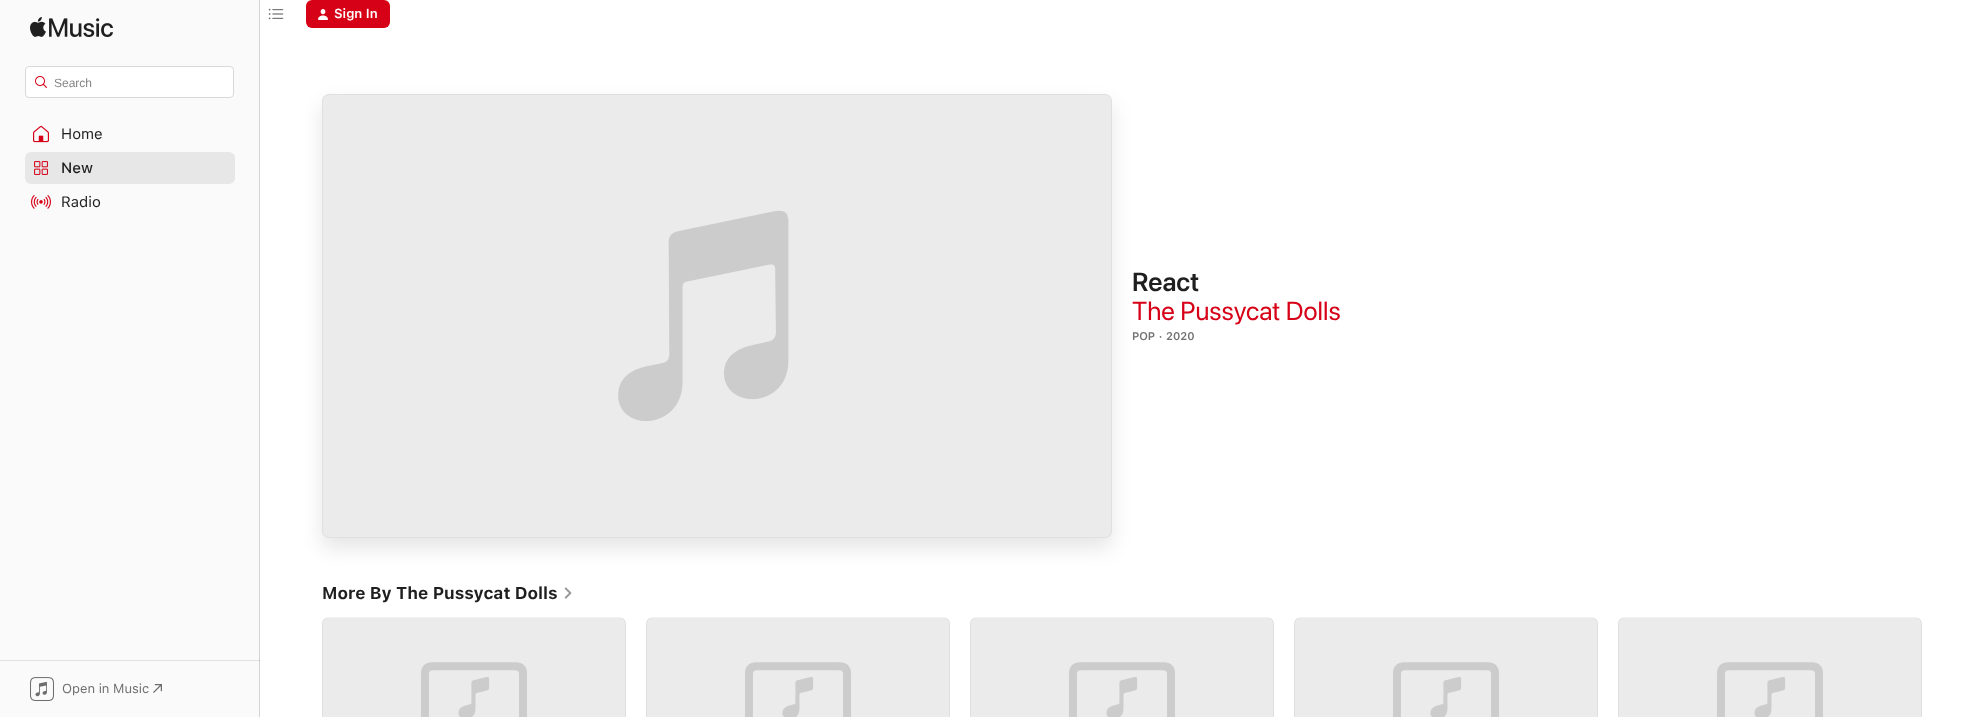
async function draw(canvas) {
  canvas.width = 1983;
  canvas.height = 717;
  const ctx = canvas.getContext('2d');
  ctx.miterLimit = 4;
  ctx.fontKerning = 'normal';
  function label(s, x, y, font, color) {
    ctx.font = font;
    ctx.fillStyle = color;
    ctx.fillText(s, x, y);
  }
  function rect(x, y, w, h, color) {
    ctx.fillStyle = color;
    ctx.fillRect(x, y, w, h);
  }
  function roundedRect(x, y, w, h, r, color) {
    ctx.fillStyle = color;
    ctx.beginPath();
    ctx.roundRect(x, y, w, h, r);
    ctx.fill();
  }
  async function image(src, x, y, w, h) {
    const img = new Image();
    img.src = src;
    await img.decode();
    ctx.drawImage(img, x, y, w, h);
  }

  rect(0, 0, 1983, 717, '#fff');
  await image('assets/img1.png', 268, 8, 16, 12);
  roundedRect(306, 0, 84, 28, 6, '#d60017');
  await image('assets/img2.png', 318, 9, 10, 11);
  label('Sign In', 334, 18, '600 13px "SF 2"', '#fff');
  rect(0, 0, 259, 717, '#fafafa');
  rect(0, 660, 260, 1, '#e1e1e1');
  rect(259, 0, 1, 717, '#d5d5d5');
  rect(259, 660, 1, 1, '#c0c0c0');
  await image('assets/img3.png', 30, 17, 83, 20);
  ctx.fillStyle = '#fff';
  ctx.beginPath();
  ctx.roundRect(25.5, 66.5, 208, 31, 3.5);
  ctx.fill();
  ctx.strokeStyle = '#d9d9d9';
  ctx.stroke();
  await image('assets/img4.png', 35, 76, 12, 12);
  label('Search', 54, 87, '12px Liberation Sans', '#858585');
  await image('assets/img5.png', 33, 125, 16, 18);
  label('Home', 61, 139, '15px "SF 2"', '#1f1f1f');
  roundedRect(25, 152, 210, 32, 6, '#e7e7e8');
  await image('assets/img6.png', 34, 161, 14, 14);
  label('New', 61, 173, '500 15px SF', '#1f1f1f');
  await image('assets/img7.png', 31, 195, 20, 14);
  label('Radio', 61, 207, '15px "SF 2"', '#1f1f1f');
  await image('assets/img8.png', 30, 677, 24, 24);
  label('Open in Music', 62, 693, '13px "SF 2"', '#707070');
  await image('assets/img9.png', 153, 684, 9, 9);
  ctx.fillStyle = '#0000001a';
  ctx.filter = 'blur(10px)';
  ctx.beginPath();
  ctx.roundRect(322, 104, 790, 444, 7);
  ctx.fill();
  ctx.filter = 'none';
  roundedRect(322, 94, 790, 444, 7, '#ebebeb');
  await image('assets/img10.png', 618, 210, 171, 211);
  ctx.beginPath();
  ctx.roundRect(322.5, 94.5, 789, 443, 6.5);
  ctx.strokeStyle = '#8080801a';
  ctx.stroke();
  label('React', 1132, 291, '600 26px SF', '#1f1f1f');
  label('The Pussycat Dolls', 1132, 320, '26px SF', '#d60017');
  label('POP · 2020', 1132, 340, '600 11px "SF 2"', '#707070');
  label('More By The Pussycat Dolls', 322, 599, 'bold 17px SF', '#1f1f1f');
  await image('assets/img11.png', 564, 587, 8, 12);
  await image('assets/img12.png', 322, 618, 304, 99);
  ctx.beginPath();
  ctx.roundRect(322.5, 617.5, 303, 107, 6.5);
  ctx.stroke();
  await image('assets/img12.png', 646, 618, 304, 99);
  ctx.beginPath();
  ctx.roundRect(646.5, 617.5, 303, 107, 6.5);
  ctx.stroke();
  await image('assets/img12.png', 970, 618, 304, 99);
  ctx.beginPath();
  ctx.roundRect(970.5, 617.5, 303, 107, 6.5);
  ctx.stroke();
  await image('assets/img12.png', 1294, 618, 304, 99);
  ctx.beginPath();
  ctx.roundRect(1294.5, 617.5, 303, 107, 6.5);
  ctx.stroke();
  await image('assets/img12.png', 1618, 618, 304, 99);
  ctx.beginPath();
  ctx.roundRect(1618.5, 617.5, 303, 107, 6.5);
  ctx.stroke();
}

draw(document.querySelector('canvas'));
